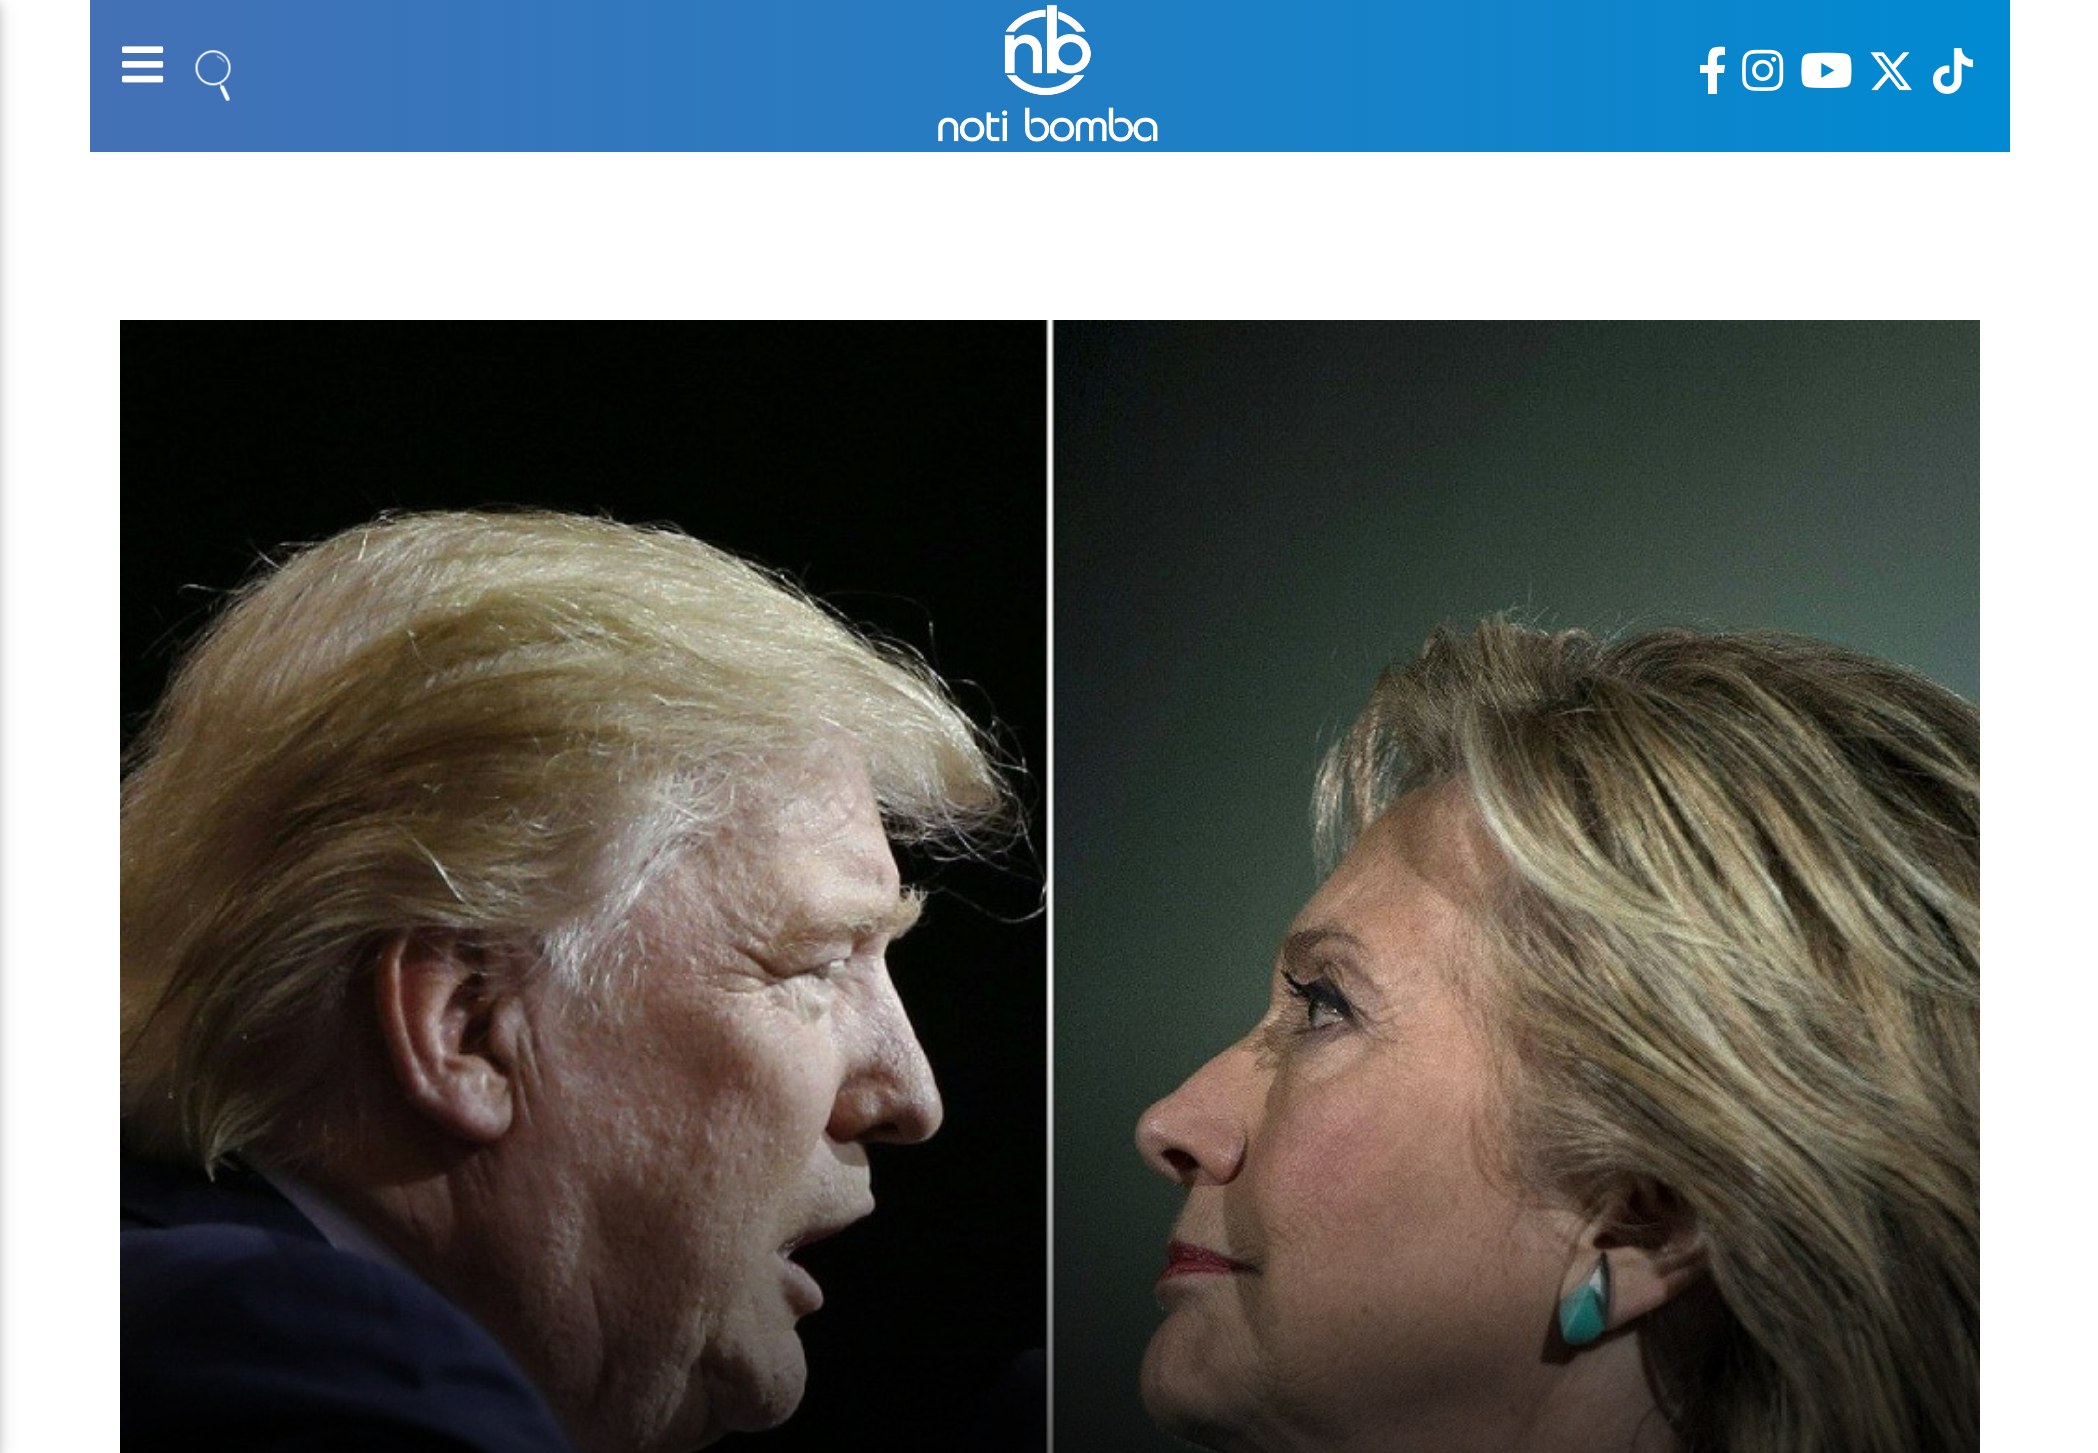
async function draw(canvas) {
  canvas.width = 2098;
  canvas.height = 1453;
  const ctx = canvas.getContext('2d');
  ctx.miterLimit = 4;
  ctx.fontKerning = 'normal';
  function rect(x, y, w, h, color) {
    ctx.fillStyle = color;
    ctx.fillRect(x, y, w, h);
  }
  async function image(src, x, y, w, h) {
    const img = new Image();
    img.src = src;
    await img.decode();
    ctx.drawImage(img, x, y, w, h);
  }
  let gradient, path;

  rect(0, 0, 2098, 1453, '#fff');
  ctx.fillStyle = '#0000001f';
  ctx.filter = 'blur(10px)';
  ctx.beginPath();
  ctx.rect(-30, 4, 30, 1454);
  ctx.fill();
  ctx.filter = 'none';
  ctx.fillStyle = '#00000029';
  ctx.filter = 'blur(5px)';
  ctx.beginPath();
  ctx.rect(-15, 4, 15, 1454);
  ctx.fill();
  ctx.filter = 'none';
  gradient = ctx.createLinearGradient(90, 76, 2010, 76);
  gradient.addColorStop(0, '#4470b5');
  gradient.addColorStop(1, '#008ad1');
  ctx.fillStyle = gradient;
  ctx.fillRect(90, 0, 1920, 152);
  await image('assets/img1.png', 122, 46, 42, 37);
  await image('assets/img2.png', 195, 50, 36, 51);
  await image('assets/img3.png', 938, 4, 220, 138);
  ctx.fillStyle = '#fff';
  path = new Path2D('M1724 73H1717V94H1708V73H1700V65H1708C1708 49 1710 46 1725 47V55C1716 55 1717 56 1717 65H1725Z');
  ctx.fill(path);
  await image('assets/img4.png', 1742, 49, 42, 42);
  await image('assets/img5.png', 1801, 52, 51, 36);
  await image('assets/img6.png', 1870, 52, 42, 39);
  await image('assets/img7.png', 1933, 48, 41, 46);
  await image('assets/img8.png', 120, 320, 1860, 1133);
}

draw(document.querySelector('canvas'));
